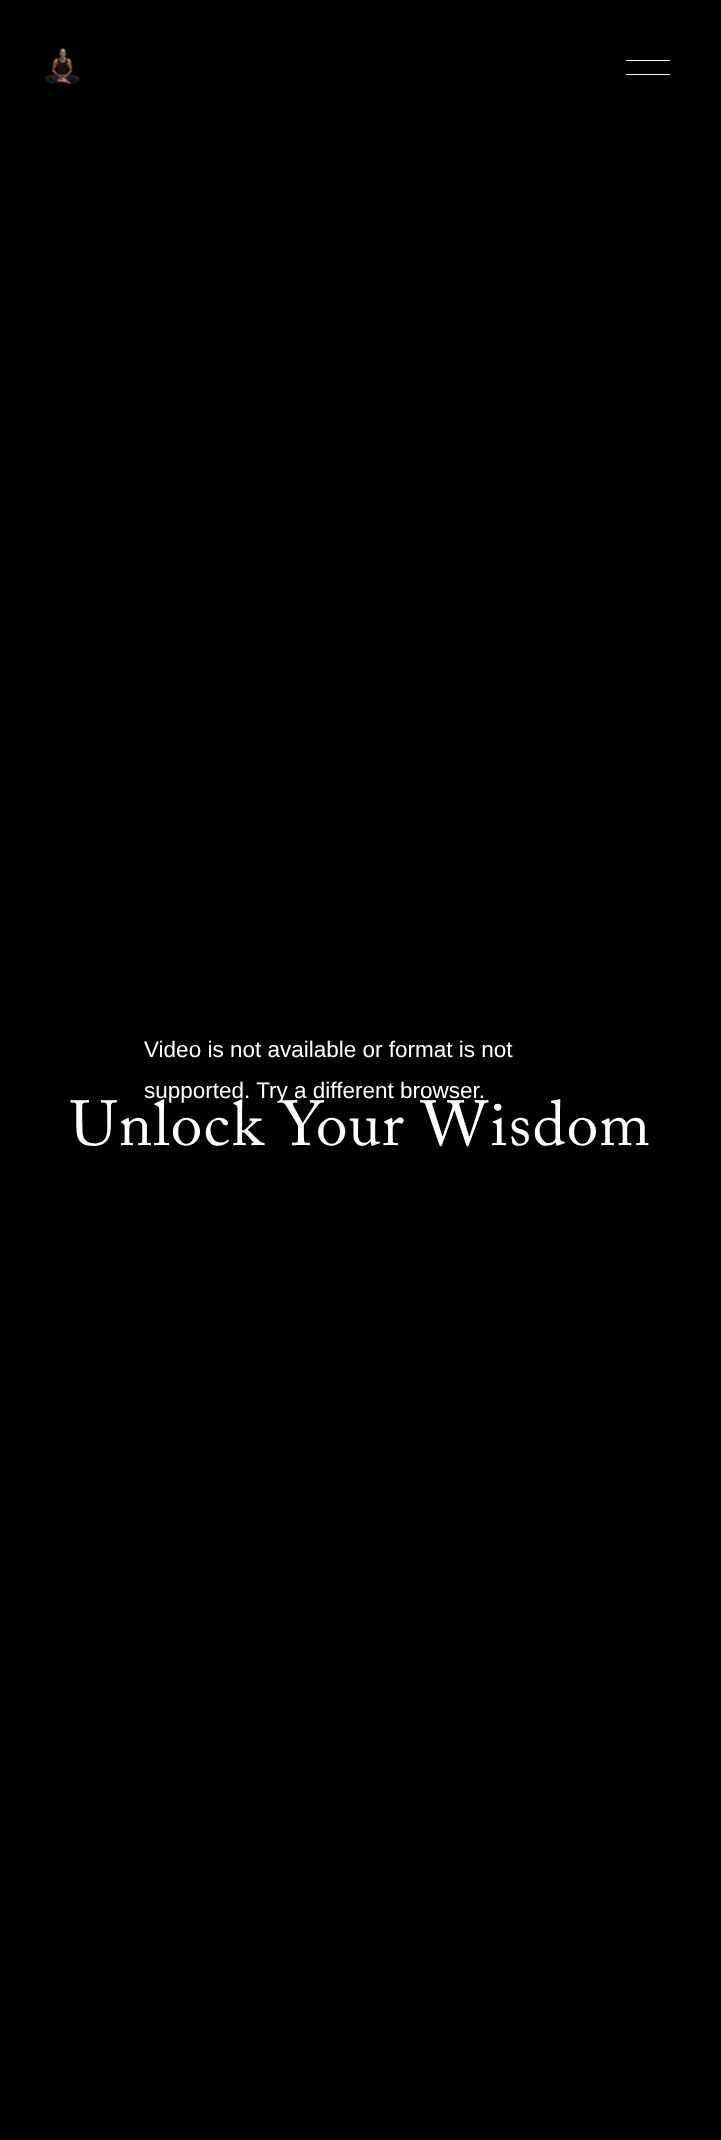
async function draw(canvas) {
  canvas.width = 721;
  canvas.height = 2140;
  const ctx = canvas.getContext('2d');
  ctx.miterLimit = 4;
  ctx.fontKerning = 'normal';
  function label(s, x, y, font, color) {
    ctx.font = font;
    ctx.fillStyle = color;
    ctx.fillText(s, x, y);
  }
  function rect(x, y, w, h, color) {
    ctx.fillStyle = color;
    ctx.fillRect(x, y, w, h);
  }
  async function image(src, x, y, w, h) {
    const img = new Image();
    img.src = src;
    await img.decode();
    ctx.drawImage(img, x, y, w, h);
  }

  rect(0, 0, 721, 2140, '#000');
  await image('assets/img1.png', 44, 48, 36, 37);
  rect(626, 60, 44, 1, '#fafafa');
  rect(626, 74, 44, 1, '#fafafa');
  label('Video is not available or format is not', 144, 1057, '22.5px Liberation Sans', '#fff');
  label('supported. Try a different browser.', 144, 1098, '22.5px Liberation Sans', '#fff');
  ctx.letterSpacing = '1.25px';
  label('Unlock Your Wisdom', 70, 1145, '63.25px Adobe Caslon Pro', '#fff');
}

draw(document.querySelector('canvas'));
